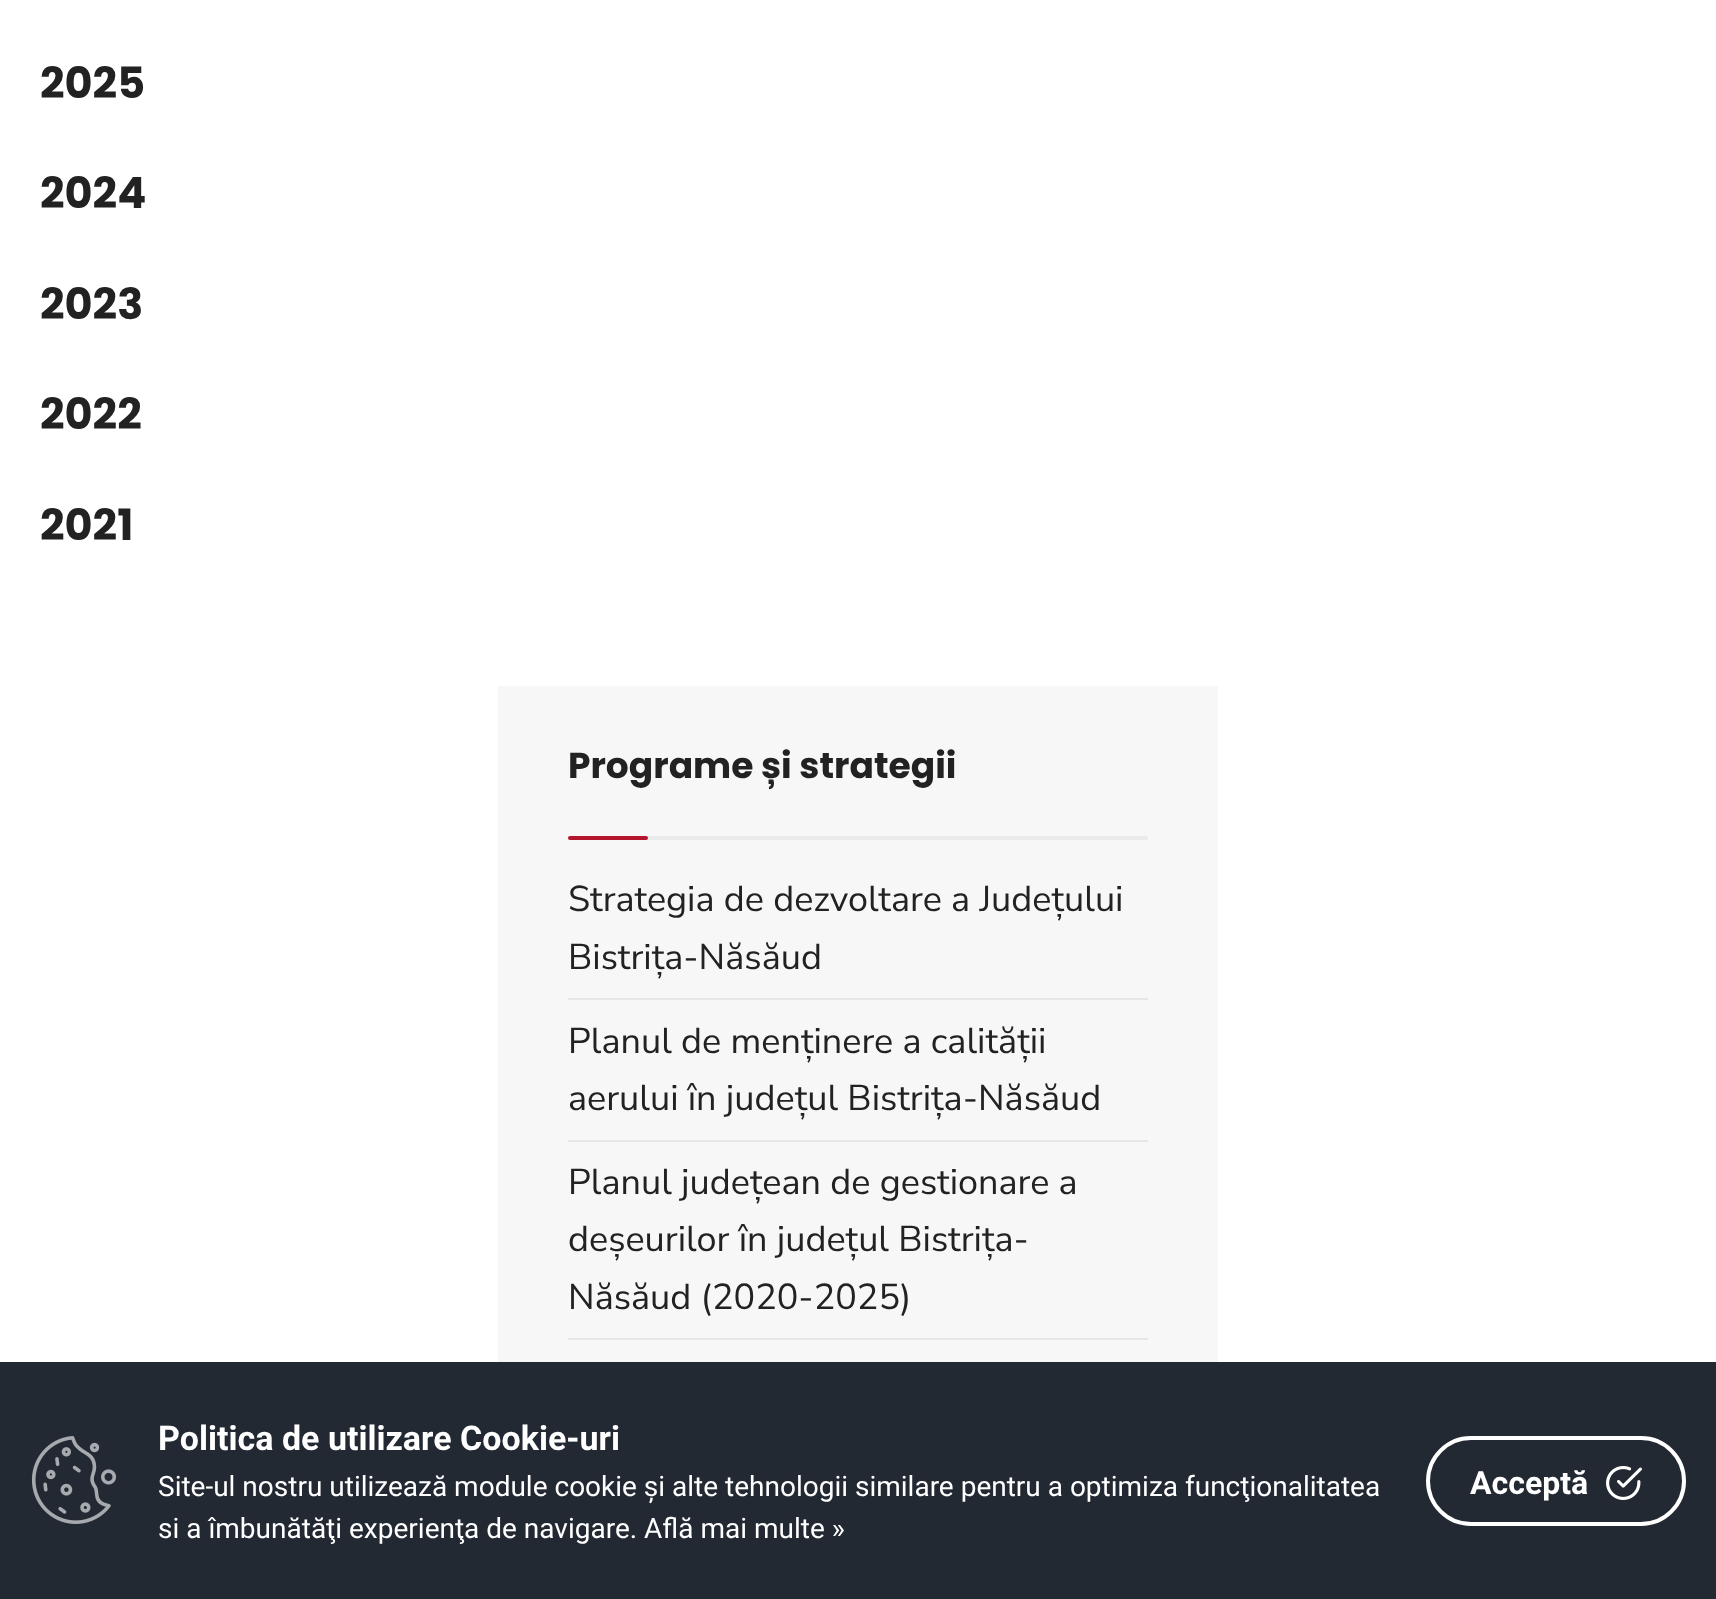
async function draw(canvas) {
  canvas.width = 1716;
  canvas.height = 1599;
  const ctx = canvas.getContext('2d');
  ctx.miterLimit = 4;
  ctx.fontKerning = 'normal';
  function label(s, x, y, font, color) {
    ctx.font = font;
    ctx.fillStyle = color;
    ctx.fillText(s, x, y);
  }
  function rect(x, y, w, h, color) {
    ctx.fillStyle = color;
    ctx.fillRect(x, y, w, h);
  }
  function roundedRect(x, y, w, h, r, color) {
    ctx.fillStyle = color;
    ctx.beginPath();
    ctx.roundRect(x, y, w, h, r);
    ctx.fill();
  }
  async function image(src, x, y, w, h) {
    const img = new Image();
    img.src = src;
    await img.decode();
    ctx.drawImage(img, x, y, w, h);
  }

  rect(0, 0, 1716, 1599, '#fff');
  label('2025', 40, 98, 'bold 43px Poppins', '#222');
  label('2024', 40, 208, 'bold 43px Poppins', '#222');
  label('2023', 40, 319, 'bold 43px Poppins', '#222');
  label('2022', 40, 429, 'bold 43px Poppins', '#222');
  label('2021', 40, 540, 'bold 43px Poppins', '#222');
  rect(498, 686, 720, 676, '#f7f7f7');
  label('Programe și strategii', 568, 778, 'bold 36px Poppins', '#222');
  roundedRect(644, 836, 504, 4, 2, '#eaeaea');
  roundedRect(568, 836, 80, 4, 2, '#b5152b');
  label('Strategia de dezvoltare a Județului', 568, 911, '36px Nunito Sans', '#222');
  label('Bistrița-Năsăud', 568, 969, '36px Nunito Sans', '#222');
  rect(568, 998, 580, 2, '#e6e6e6');
  label('Planul de menținere a calității', 568, 1053, '36px Nunito Sans', '#222');
  label('aerului în județul Bistrița-Năsăud', 568, 1110, '36px Nunito Sans', '#222');
  rect(568, 1140, 580, 2, '#e6e6e6');
  label('Planul județean de gestionare a', 568, 1194, '36px Nunito Sans', '#222');
  label('deșeurilor în județul Bistrița-', 568, 1251, '36px Nunito Sans', '#222');
  label('Năsăud (2020-2025)', 568, 1309, '36px Nunito Sans', '#222');
  rect(568, 1338, 580, 2, '#e6e6e6');
  rect(0, 1362, 1716, 237, '#222933');
  await image('assets/img1.png', 31, 1436, 86, 88);
  label('Politica de utilizare Cookie-uri', 158, 1450, 'bold 34px Roboto', '#fff');
  label('Site-ul nostru utilizează module cookie și alte tehnologii similare pentru a optimiza funcţionalitatea', 158, 1496, '28px Roboto', '#fff');
  label('si a îmbunătăţi experienţa de navigare. Află mai multe »', 158, 1538, '28px Roboto', '#fff');
  ctx.beginPath();
  ctx.roundRect(1428, 1438, 256, 86, 43);
  ctx.strokeStyle = '#fff';
  ctx.lineWidth = 4;
  ctx.stroke();
  label('Acceptă', 1470, 1494, 'bold 32px Roboto', '#fff');
  await image('assets/img2.png', 1606, 1466, 36, 34);
}

draw(document.querySelector('canvas'));
